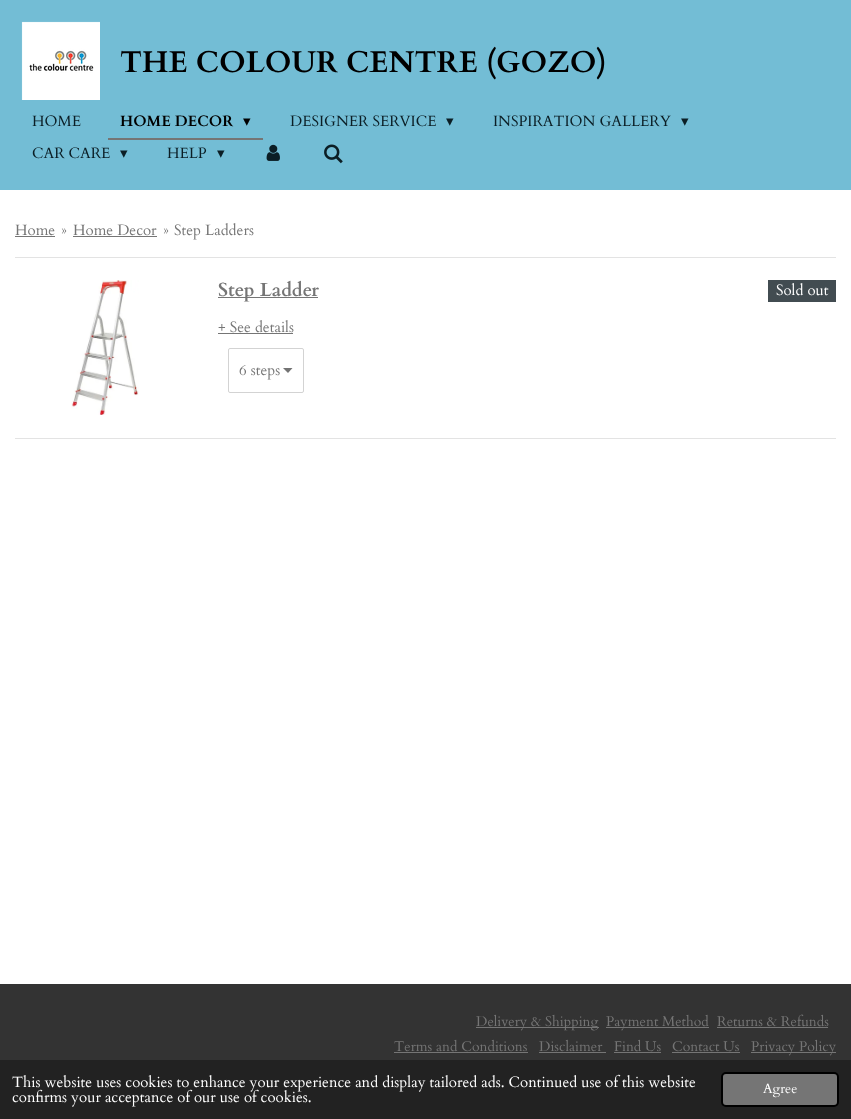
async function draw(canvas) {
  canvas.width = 851;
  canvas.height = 1119;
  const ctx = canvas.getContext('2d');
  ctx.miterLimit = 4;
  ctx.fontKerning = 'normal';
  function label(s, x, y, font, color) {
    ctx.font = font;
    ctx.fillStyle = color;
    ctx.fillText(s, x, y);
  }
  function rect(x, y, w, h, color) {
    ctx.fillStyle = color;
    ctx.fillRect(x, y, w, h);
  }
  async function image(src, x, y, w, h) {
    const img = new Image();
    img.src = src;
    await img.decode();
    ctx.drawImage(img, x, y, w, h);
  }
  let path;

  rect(0, 0, 851, 1119, '#73bdd5');
  await image('assets/img1.png', 21, 21, 79, 79);
  label('THE COLOUR CENTRE (GOZO)', 120, 72, 'bold 30px Cardo', '#000');
  label('HOME', 32, 126, '15px Cardo', '#0b1e25');
  rect(108, 138, 155, 2, '#757575');
  label('HOME DECOR', 120, 126, 'bold 15px Cardo', '#000');
  label('▾', 243, 126, '15px DejaVu Sans', '#000');
  label('DESIGNER SERVICE', 290, 126, '15px Cardo', '#0b1e25');
  label('▾', 446, 126, '15px DejaVu Sans', '#0b1e25');
  label('INSPIRATION GALLERY', 493, 126, '15px Cardo', '#0b1e25');
  label('▾', 681, 126, '15px DejaVu Sans', '#0b1e25');
  label('CAR CARE', 32, 158, '15px Cardo', '#0b1e25');
  label('▾', 120, 158, '15px DejaVu Sans', '#0b1e25');
  label('HELP', 167, 158, '15px Cardo', '#0b1e25');
  label('▾', 217, 158, '15px DejaVu Sans', '#0b1e25');
  await image('assets/img2.png', 266, 144, 14, 17);
  await image('assets/img3.png', 324, 144, 19, 20);
  rect(0, 190, 851, 794, '#fff');
  label('Home', 15, 235, '15px Cardo', '#757575');
  rect(15, 236, 40, 1, '#757575');
  label('»', 61, 235, '15px Cardo', '#757575');
  label('Home Decor', 73, 235, '15px Cardo', '#757575');
  rect(73, 236, 84, 1, '#757575');
  label('»', 163, 235, '15px Cardo', '#757575');
  label('Step Ladders', 174, 235, '15px Cardo', '#757575');
  rect(15, 257, 821, 1, '#e3e3e3');
  rect(15, 438, 821, 1, '#e3e3e3');
  await image('assets/img4.png', 71, 280, 68, 135);
  rect(218, 297, 100, 1, '#757575');
  label('Step Ladder', 218, 296, 'bold 19px Cardo', '#757575');
  rect(768, 280, 68, 22, '#424c51');
  label('Sold out', 776, 295, '15px Cardo', '#fff');
  label('+ See details', 218, 332, '15px Cardo', '#757575');
  rect(218, 333, 75, 1, '#757575');
  ctx.fillStyle = '#737373';
  path = new Path2D('M288 373L283 368H292.5Z');
  ctx.fill(path);
  ctx.beginPath();
  ctx.roundRect(228.5, 348.5, 75, 44, 1.5);
  ctx.strokeStyle = '#d3d3d3';
  ctx.stroke();
  label('6 steps', 239, 375, '15px Cardo', '#757575');
  rect(0, 984, 851, 76, '#333');
  rect(476, 1027, 123, 1, '#757575');
  label('Delivery & Shipping', 476, 1026, '14px Cardo', '#757575');
  rect(606, 1027, 103, 1, '#757575');
  label('Payment Method', 606, 1026, '14px Cardo', '#757575');
  label('Returns & Refunds', 717, 1026, '14px Cardo', '#757575');
  rect(717, 1027, 111, 1, '#757575');
  label('Terms and Conditions', 394, 1051, '14px Cardo', '#757575');
  rect(394, 1052, 134, 1, '#757575');
  label('Disclaimer', 539, 1051, '14px Cardo', '#757575');
  rect(539, 1052, 67, 1, '#757575');
  label('Find Us', 614, 1051, '14px Cardo', '#757575');
  rect(614, 1052, 47, 1, '#757575');
  label('Contact Us', 672, 1051, '14px Cardo', '#757575');
  rect(672, 1052, 68, 1, '#757575');
  rect(751, 1052, 85, 1, '#757575');
  label('Privacy Policy', 751, 1051, '14px Cardo', '#757575');
  rect(0, 1060, 851, 59, '#222');
  label('This website uses cookies to enhance your experience and display tailored ads. Continued use of this website', 12, 1087, '15px Cardo', '#fff');
  label('confirms your acceptance of our use of cookies.', 12, 1102, '15px Cardo', '#fff');
  ctx.fillStyle = '#757575';
  ctx.beginPath();
  ctx.roundRect(722, 1073, 116, 33, 4);
  ctx.fill();
  ctx.strokeStyle = '#000';
  ctx.lineWidth = 2;
  ctx.stroke();
  label('Agree', 763, 1093, '13.5px Cardo', '#fff');
}

draw(document.querySelector('canvas'));
